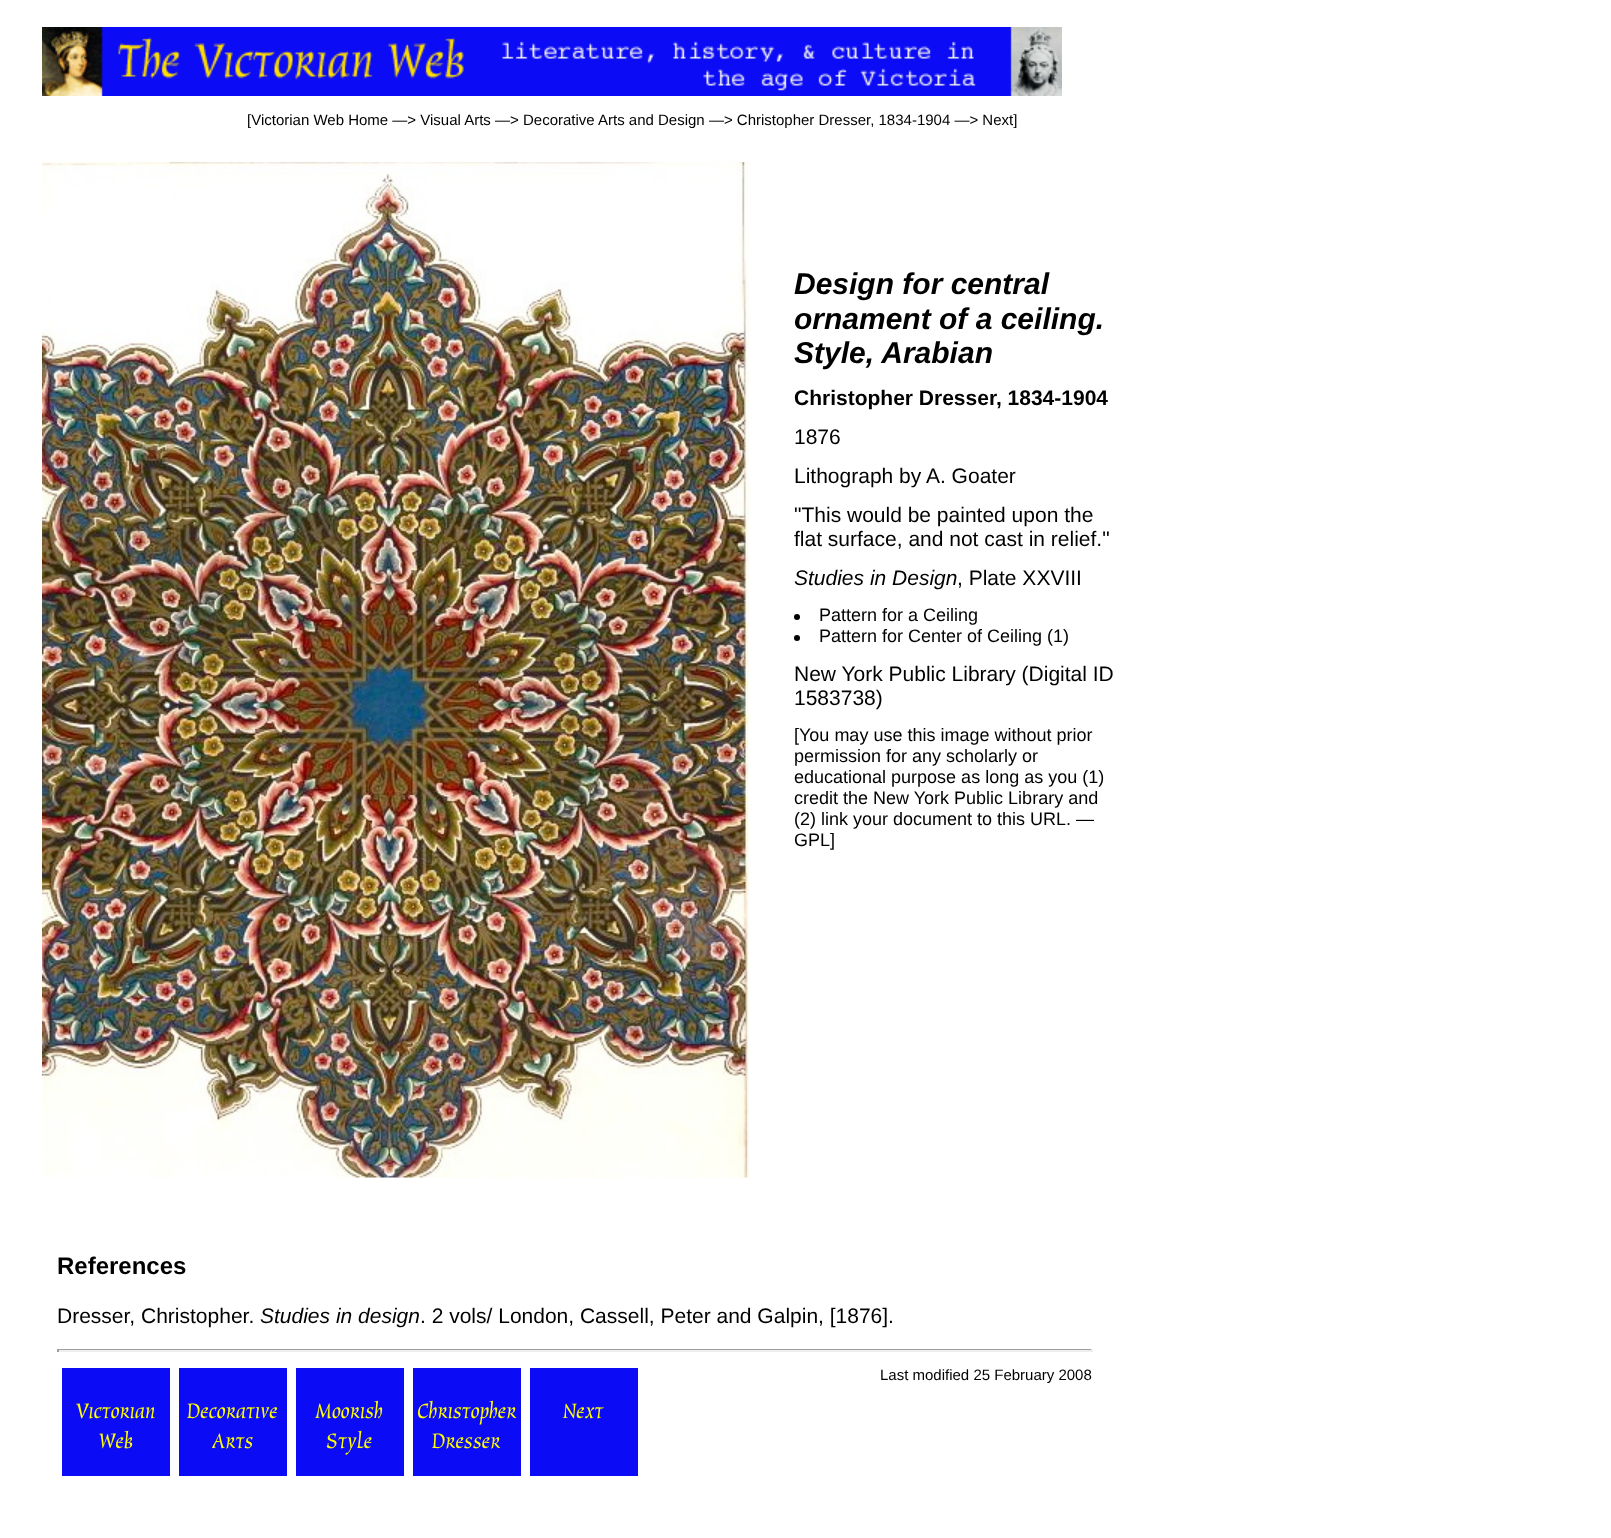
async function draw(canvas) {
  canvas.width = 1611;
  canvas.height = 1538;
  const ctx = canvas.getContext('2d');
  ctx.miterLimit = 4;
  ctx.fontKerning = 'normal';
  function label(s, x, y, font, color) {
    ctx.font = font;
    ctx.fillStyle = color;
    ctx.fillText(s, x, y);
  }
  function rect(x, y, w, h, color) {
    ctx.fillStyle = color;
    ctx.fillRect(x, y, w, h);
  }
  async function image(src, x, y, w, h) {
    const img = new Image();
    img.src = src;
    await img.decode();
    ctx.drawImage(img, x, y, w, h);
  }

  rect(0, 0, 1611, 1538, '#fff');
  await image('assets/img1.png', 42, 27, 1020, 69);
  label('[Victorian Web Home —> Visual Arts —> Decorative Arts and Design —> Christopher Dresser, 1834-1904 —> Next]', 247, 125, '15px Liberation Sans', '#000');
  await image('assets/img2.png', 42, 162, 707, 1016);
  label('Design for central', 794, 294, 'italic bold 30px Liberation Sans', '#000');
  label('ornament of a ceiling.', 794, 329, 'italic bold 30px Liberation Sans', '#000');
  label('Style, Arabian', 794, 363, 'italic bold 30px Liberation Sans', '#000');
  label('Christopher Dresser, 1834-1904', 794, 405, 'bold 21px Liberation Sans', '#000');
  label('1876', 794, 444, '21px Liberation Sans', '#000');
  label('Lithograph by A. Goater', 794, 483, '21px Liberation Sans', '#000');
  label('"This would be painted upon the', 794, 522, '21px Liberation Sans', '#000');
  label('flat surface, and not cast in relief."', 794, 546, '21px Liberation Sans', '#000');
  label('Studies in Design', 794, 585, 'italic 21px Liberation Sans', '#000');
  label(', Plate XXVIII', 957, 585, '21px Liberation Sans', '#000');
  ctx.beginPath();
  ctx.arc(797, 617, 3, 0, 2 * Math.PI);
  ctx.fill();
  label('Pattern for a Ceiling', 819, 621, '18px Liberation Sans', '#000');
  ctx.beginPath();
  ctx.arc(797, 638, 3, 0, 2 * Math.PI);
  ctx.fill();
  label('Pattern for Center of Ceiling (1)', 819, 642, '18px Liberation Sans', '#000');
  label('New York Public Library (Digital ID', 794, 681, '21px Liberation Sans', '#000');
  label('1583738)', 794, 705, '21px Liberation Sans', '#000');
  label('[You may use this image without prior', 794, 741, '18px Liberation Sans', '#000');
  label('permission for any scholarly or', 794, 762, '18px Liberation Sans', '#000');
  label('educational purpose as long as you (1)', 794, 783, '18px Liberation Sans', '#000');
  label('credit the New York Public Library and', 794, 804, '18px Liberation Sans', '#000');
  label('(2) link your document to this URL. —', 794, 825, '18px Liberation Sans', '#000');
  label('GPL]', 794, 846, '18px Liberation Sans', '#000');
  label('References', 57, 1274, 'bold 24px Liberation Sans', '#000');
  label('Dresser, Christopher.', 57, 1323, '21px Liberation Sans', '#000');
  label('Studies in design', 260, 1323, 'italic 21px Liberation Sans', '#000');
  label('. 2 vols/ London, Cassell, Peter and Galpin, [1876].', 420, 1323, '21px Liberation Sans', '#000');
  rect(57, 1349, 1035, 1, '#9f9f9f');
  rect(1091, 1349, 2, 3, '#eee');
  rect(57, 1350, 1035, 2, '#eee');
  rect(57, 1349, 2, 3, '#9f9f9f');
  label('Last modified 25 February 2008', 880, 1380, '15px Liberation Sans', '#000');
  rect(62, 1368, 108, 108, '#0b0bf5');
  label('Victorian', 76, 1418, '24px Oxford', '#ff0');
  label('Web', 99, 1448, '24px Oxford', '#ff0');
  rect(179, 1368, 108, 108, '#0b0bf5');
  label('Decorative', 187, 1418, '24px Oxford', '#ff0');
  label('Arts', 212, 1448, '24px Oxford', '#ff0');
  rect(296, 1368, 108, 108, '#0b0bf5');
  label('Moorish', 315, 1418, '24px Oxford', '#ff0');
  label('Style', 326, 1448, '24px Oxford', '#ff0');
  rect(413, 1368, 108, 108, '#0b0bf5');
  label('Christopher', 417, 1418, '24px Oxford', '#ff0');
  label('Dresser', 432, 1448, '24px Oxford', '#ff0');
  rect(530, 1368, 108, 108, '#0b0bf5');
  label('Next', 563, 1418, '24px Oxford', '#ff0');
}

draw(document.querySelector('canvas'));
